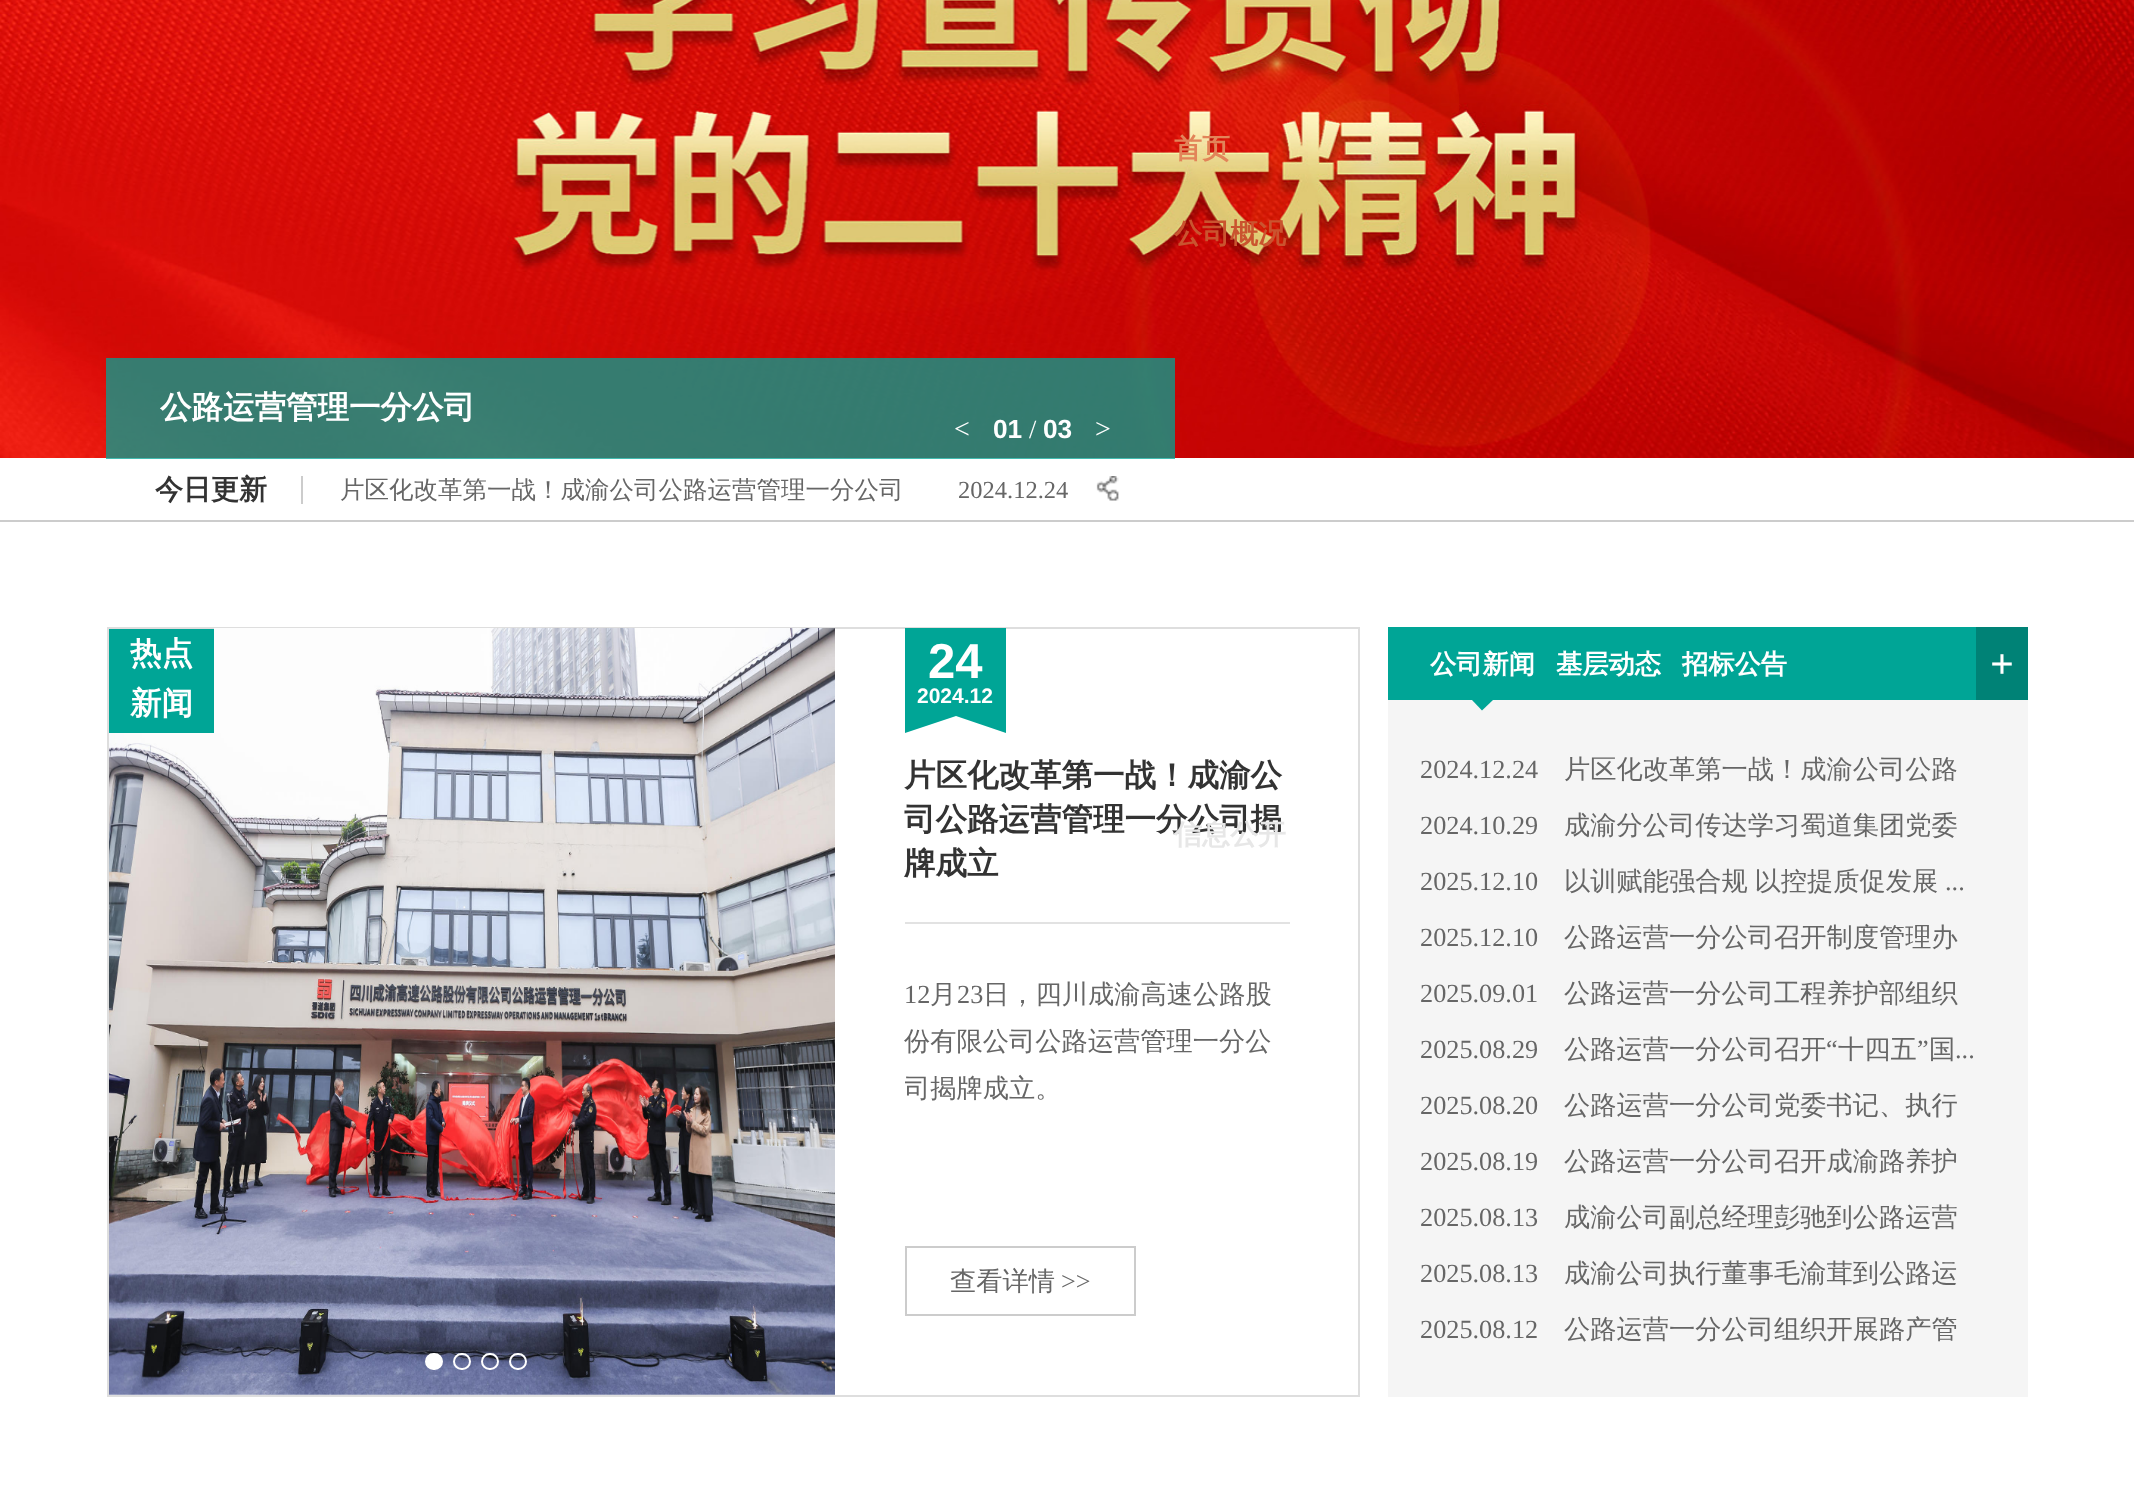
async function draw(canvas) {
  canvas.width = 2134;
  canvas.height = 1485;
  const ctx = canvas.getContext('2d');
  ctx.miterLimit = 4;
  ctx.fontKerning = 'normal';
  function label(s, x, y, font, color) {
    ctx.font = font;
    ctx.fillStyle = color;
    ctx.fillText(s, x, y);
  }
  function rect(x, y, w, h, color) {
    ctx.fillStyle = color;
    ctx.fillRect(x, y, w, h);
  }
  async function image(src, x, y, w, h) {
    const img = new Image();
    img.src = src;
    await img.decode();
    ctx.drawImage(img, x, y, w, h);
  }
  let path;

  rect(0, 0, 2134, 1485, '#fff');
  await image('assets/img1.png', 0, 0, 2134, 458);
  label('首页', 1174, 158, 'bold 28px WenQuanYi Zen Hei', '#e28459');
  label('公司概况', 1174, 243, 'bold 28px WenQuanYi Zen Hei', '#ca542f');
  ctx.strokeStyle = '#dedede';
  ctx.lineWidth = 2;
  ctx.strokeRect(108, 628, 1251, 768);
  label('司公路运营管理一分公司揭', 904, 830, 'bold 31.5px WenQuanYi Zen Hei', '#333');
  label('信息公开', 1174, 844, 'bold 28px WenQuanYi Zen Hei', '#e7e7e7');
  rect(106, 358, 1069, 101, '#00a596bd');
  label('公路运营管理一分公司', 160, 418, 'bold 31.5px WenQuanYi Zen Hei', '#fff');
  label('<', 954, 438, '28px Liberation Serif', '#fff');
  label('01', 993, 438, 'bold 26.25px Liberation Sans', '#fff');
  label('/', 1029, 438, '26.25px Liberation Serif', '#fff');
  label('03', 1043, 438, 'bold 26.25px Liberation Sans', '#fff');
  label('>', 1095, 438, '28px Liberation Serif', '#fff');
  rect(0, 520, 2134, 2, '#ccc');
  rect(301, 476, 2, 28, '#ccc');
  label('今日更新', 155, 499, 'bold 28px WenQuanYi Zen Hei', '#333');
  ctx.save();
  ctx.beginPath();
  ctx.rect(340, 478, 582, 24);
  ctx.clip();
  label('片区化改革第一战！成渝公司公路运营管理一分公司', 340, 498, '500 24.5px WenQuanYi Zen Hei', '#666');
  ctx.restore();
  label('2024.12.24', 958, 498, '24.5px Liberation Serif', '#666');
  await image('assets/img2.png', 1096, 476, 23, 25);
  await image('assets/img3.png', 109, 628, 726, 767);
  rect(109, 629, 105, 104, '#00a596');
  rect(107, 628, 107, 1, '#dedede');
  label('热点', 130, 664, 'bold 31.5px WenQuanYi Zen Hei', '#fff');
  label('新闻', 130, 714, 'bold 31.5px WenQuanYi Zen Hei', '#fff');
  rect(905, 628, 101, 88, '#00a596');
  label('24', 928, 678, 'bold 49px Liberation Sans', '#fff');
  label('2024.12', 917, 703, 'bold 21px Liberation Sans', '#fff');
  ctx.fillStyle = '#00a596';
  path = new Path2D('M1006 716V733L956 716Z');
  ctx.fill(path);
  path = new Path2D('M905 733V716H956Z');
  ctx.fill(path);
  rect(905, 922, 385, 2, '#e2e2e2');
  label('片区化改革第一战！成渝公', 904, 786, 'bold 31.5px WenQuanYi Zen Hei', '#333');
  label('牌成立', 904, 874, 'bold 31.5px WenQuanYi Zen Hei', '#333');
  label('12', 904, 1003, '26.25px Liberation Serif', '#666');
  label('月', 930, 1003, '500 26.25px WenQuanYi Zen Hei', '#666');
  label('23', 957, 1003, '26.25px Liberation Serif', '#666');
  label('日，四川成渝高速公路股', 983, 1003, '500 26.25px WenQuanYi Zen Hei', '#666');
  label('份有限公司公路运营管理一分公', 904, 1050, '500 26.25px WenQuanYi Zen Hei', '#666');
  ctx.save();
  ctx.beginPath();
  ctx.rect(905, 971, 385, 142);
  ctx.clip();
  label('司揭牌成立。', 904, 1097, '500 26.25px WenQuanYi Zen Hei', '#666');
  ctx.restore();
  ctx.strokeStyle = '#ccc';
  ctx.strokeRect(906, 1247, 229, 68);
  label('查看详情', 950, 1290, '500 26.25px WenQuanYi Zen Hei', '#666');
  label('>>', 1061, 1290, '26.25px Liberation Serif', '#666');
  ctx.fillStyle = '#fff';
  ctx.beginPath();
  ctx.roundRect(426, 1354, 16, 15, 7.5);
  ctx.fill();
  ctx.strokeStyle = '#fff';
  ctx.stroke();
  ctx.beginPath();
  ctx.roundRect(454, 1354, 16, 15, 7.5);
  ctx.stroke();
  ctx.beginPath();
  ctx.roundRect(482, 1354, 16, 15, 7.5);
  ctx.stroke();
  ctx.beginPath();
  ctx.roundRect(510, 1354, 16, 15, 7.5);
  ctx.stroke();
  rect(1388, 700, 640, 697, '#f5f5f5');
  rect(1388, 627, 588, 73, '#00a596');
  label('公司新闻', 1430, 673, 'bold 26.25px WenQuanYi Zen Hei', '#fff');
  ctx.fillStyle = '#00a596';
  path = new Path2D('M1472 700H1493L1482 710.5Z');
  ctx.fill(path);
  label('基层动态', 1556, 673, 'bold 26.25px WenQuanYi Zen Hei', '#fff');
  label('招标公告', 1682, 673, 'bold 26.25px WenQuanYi Zen Hei', '#fff');
  rect(1976, 627, 52, 73, '#008276');
  label('+', 1990, 678, 'bold 42px Liberation Serif', '#fff');
  label('2024.12.24', 1420, 778, '26.25px Liberation Serif', '#666');
  label('片区化改革第一战！成渝公司公路', 1564, 778, '500 26.25px WenQuanYi Zen Hei', '#666');
  label('2024.10.29', 1420, 834, '26.25px Liberation Serif', '#666');
  label('成渝分公司传达学习蜀道集团党委', 1564, 834, '500 26.25px WenQuanYi Zen Hei', '#666');
  label('2025.12.10', 1420, 890, '26.25px Liberation Serif', '#666');
  ctx.wordSpacing = '-1px';
  label('以训赋能强合规 以控提质促发展', 1564, 890, '500 26.25px WenQuanYi Zen Hei', '#666');
  ctx.wordSpacing = '0px';
  label('...', 1945, 890, '26.25px Liberation Serif', '#666');
  label('2025.12.10', 1420, 946, '26.25px Liberation Serif', '#666');
  label('公路运营一分公司召开制度管理办', 1564, 946, '500 26.25px WenQuanYi Zen Hei', '#666');
  label('2025.09.01', 1420, 1002, '26.25px Liberation Serif', '#666');
  label('公路运营一分公司工程养护部组织', 1564, 1002, '500 26.25px WenQuanYi Zen Hei', '#666');
  label('2025.08.29', 1420, 1058, '26.25px Liberation Serif', '#666');
  label('公路运营一分公司召开', 1564, 1058, '500 26.25px WenQuanYi Zen Hei', '#666');
  label('“', 1826, 1058, '26.25px Liberation Serif', '#666');
  label('十四五', 1838, 1058, '500 26.25px WenQuanYi Zen Hei', '#666');
  label('”', 1917, 1058, '26.25px Liberation Serif', '#666');
  label('国', 1929, 1058, '500 26.25px WenQuanYi Zen Hei', '#666');
  label('...', 1955, 1058, '26.25px Liberation Serif', '#666');
  label('2025.08.20', 1420, 1114, '26.25px Liberation Serif', '#666');
  label('公路运营一分公司党委书记、执行', 1564, 1114, '500 26.25px WenQuanYi Zen Hei', '#666');
  label('2025.08.19', 1420, 1170, '26.25px Liberation Serif', '#666');
  label('公路运营一分公司召开成渝路养护', 1564, 1170, '500 26.25px WenQuanYi Zen Hei', '#666');
  label('2025.08.13', 1420, 1226, '26.25px Liberation Serif', '#666');
  label('成渝公司副总经理彭驰到公路运营', 1564, 1226, '500 26.25px WenQuanYi Zen Hei', '#666');
  label('2025.08.13', 1420, 1282, '26.25px Liberation Serif', '#666');
  label('成渝公司执行董事毛渝茸到公路运', 1564, 1282, '500 26.25px WenQuanYi Zen Hei', '#666');
  label('2025.08.12', 1420, 1338, '26.25px Liberation Serif', '#666');
  label('公路运营一分公司组织开展路产管', 1564, 1338, '500 26.25px WenQuanYi Zen Hei', '#666');
}

draw(document.querySelector('canvas'));
